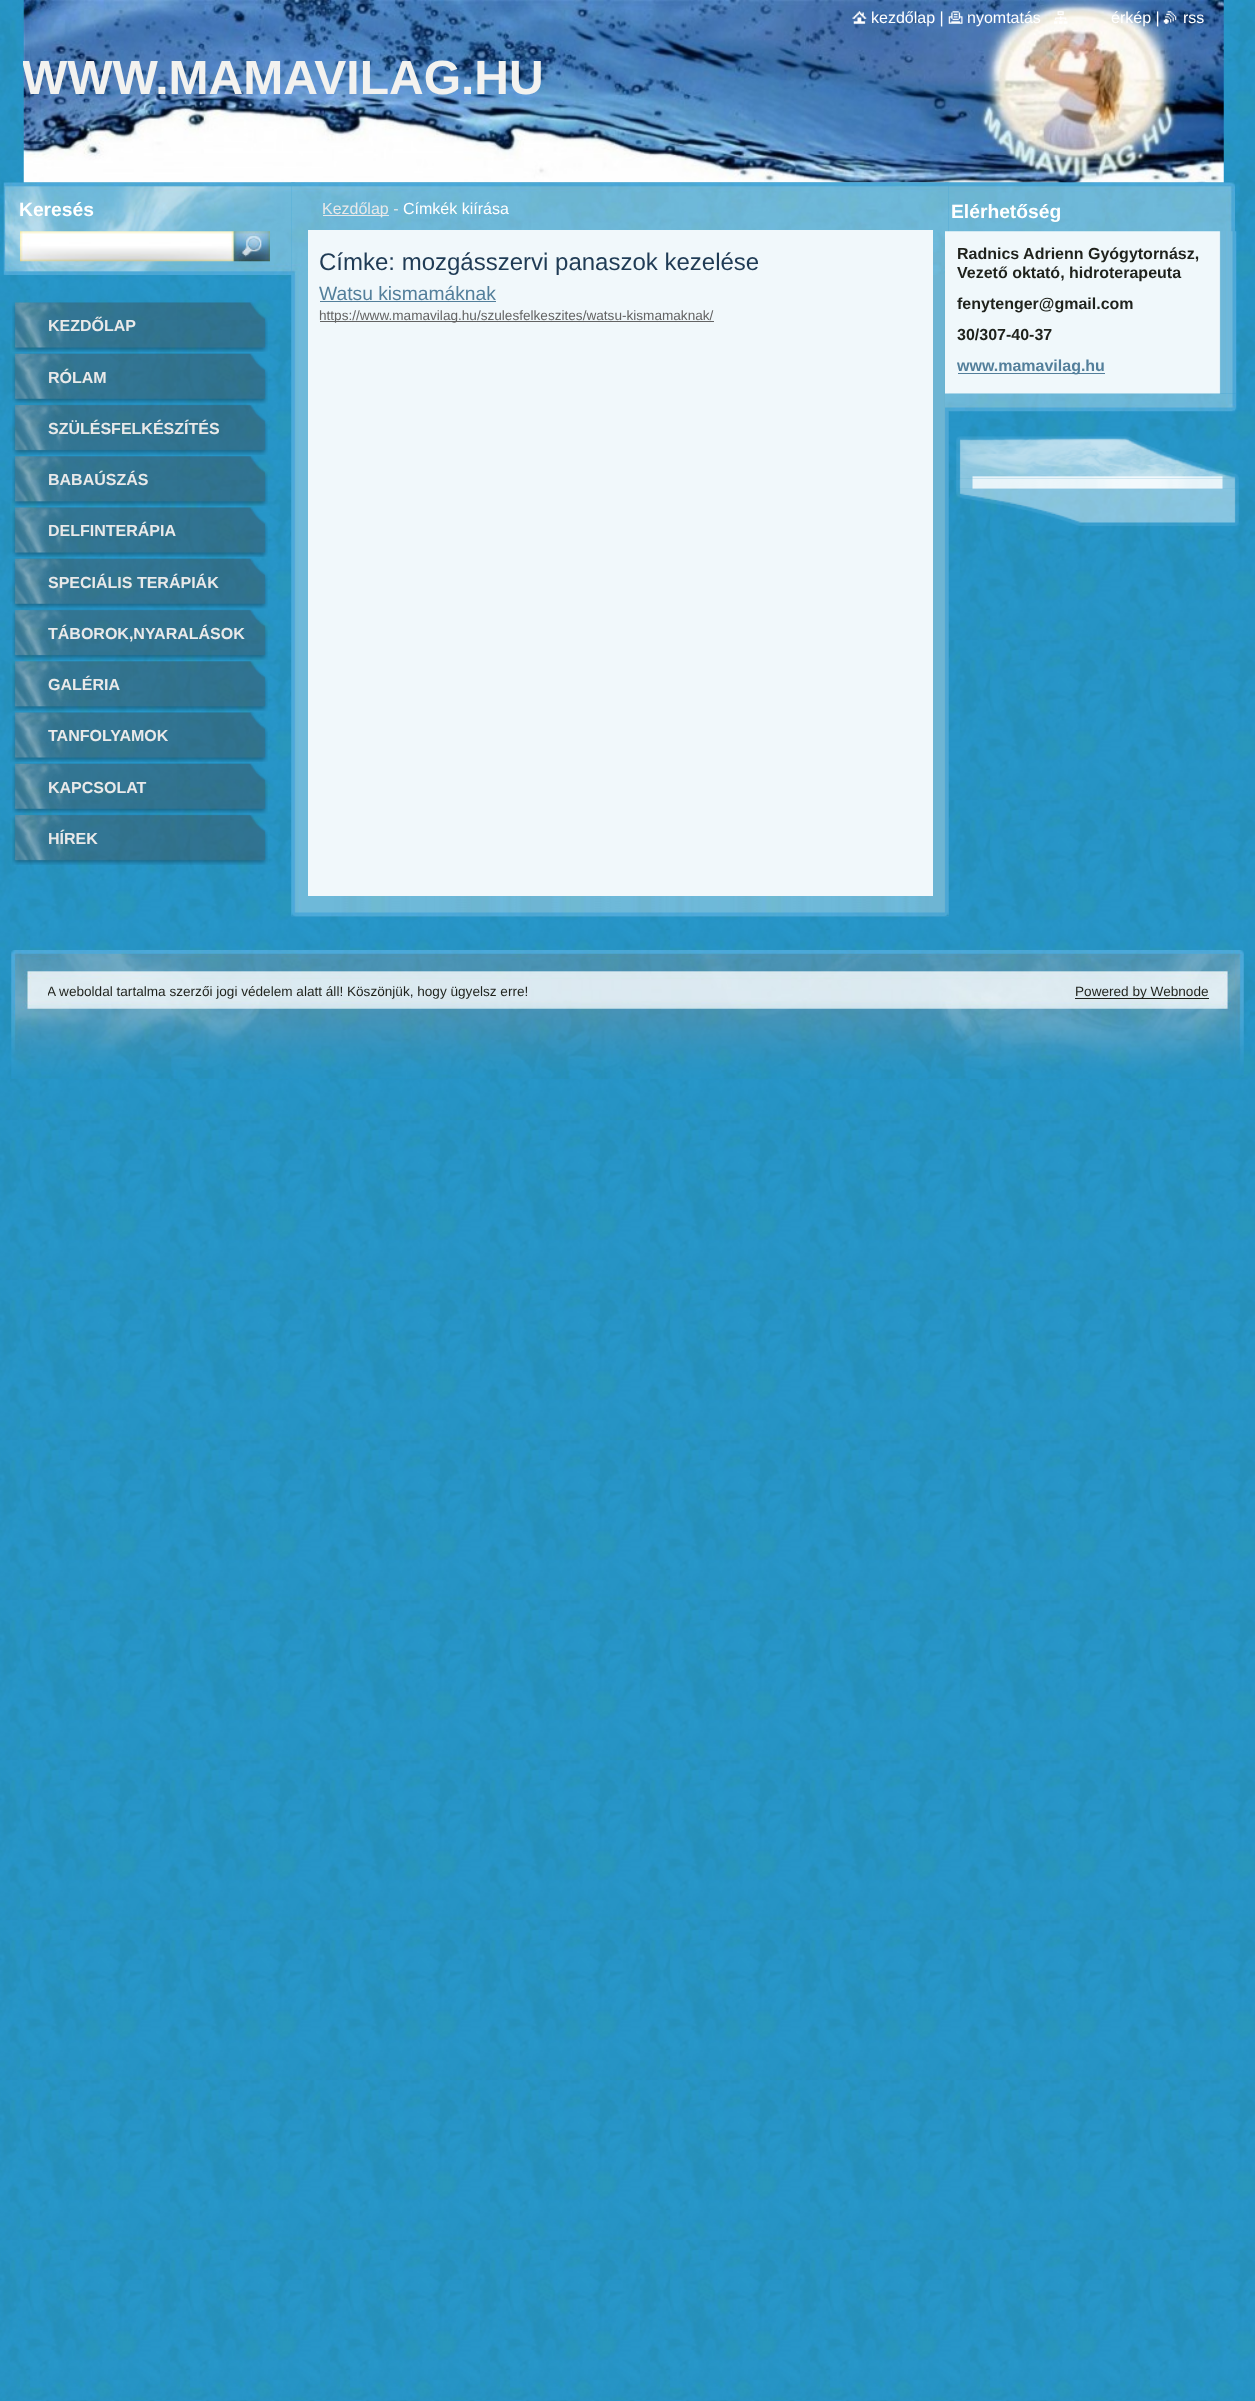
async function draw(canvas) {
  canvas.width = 1255;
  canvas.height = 2401;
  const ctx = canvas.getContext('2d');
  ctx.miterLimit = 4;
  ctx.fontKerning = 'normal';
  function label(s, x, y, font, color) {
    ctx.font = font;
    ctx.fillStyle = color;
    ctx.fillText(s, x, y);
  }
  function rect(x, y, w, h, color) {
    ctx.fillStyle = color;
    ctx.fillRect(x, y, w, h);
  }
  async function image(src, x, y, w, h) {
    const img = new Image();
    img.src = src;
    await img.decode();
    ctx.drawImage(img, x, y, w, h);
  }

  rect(0, 0, 1255, 2401, '#fff');
  await image('assets/img1.png', 0, 1078, 1255, 1323);
  await image('assets/img2.png', 0, 1078, 1255, 1);
  await image('assets/img3.png', 0, 0, 1255, 1079);
  await image('assets/img8.png', 23, 0, 1201, 183);
  await image('assets/img4.png', 852, 11, 15, 13);
  label('kezdőlap |', 871, 23, '16px Liberation Sans', '#fff');
  await image('assets/img5.png', 948, 11, 15, 13);
  label('nyomtatás', 967, 23, '16px Liberation Sans', '#fff');
  await image('assets/img6.png', 1054, 11, 14, 13);
  label('érkép |', 1111, 23, '16px Liberation Sans', '#fff');
  await image('assets/img7.png', 1163, 11, 14, 13);
  label('rss', 1183, 23, '16px Liberation Sans', '#fff');
  ctx.save();
  ctx.beginPath();
  ctx.rect(23, 50, 750, 55);
  ctx.clip();
  label('WWW.MAMAVILAG.HU', 22, 94, 'bold 48px Liberation Sans', '#f3f2ef');
  ctx.restore();
  await image('assets/img9.png', 3, 182, 1232, 93);
  label('Keresés', 19, 216, 'bold 19.25px Liberation Sans', '#fff');
  await image('assets/img10.png', 20, 231, 214, 31);
  await image('assets/img11.png', 233, 231, 37, 31);
  await image('assets/img12.png', 291, 182, 658, 735);
  await image('assets/img13.png', 291, 182, 658, 93);
  rect(323, 215, 66, 1, '#e9e9e9');
  label('Kezdőlap -', 322, 214, '16px Liberation Sans', '#e9e9e9');
  label('Címkék kiírása', 403, 214, '16px Liberation Sans', '#fff');
  rect(308, 230, 625, 666, '#f1f8fb');
  label('Címke: mozgásszervi panaszok kezelése', 319, 270, '24px Liberation Sans', '#1f3b55');
  label('Watsu kismamáknak', 319, 300, '19.25px Liberation Sans', '#537f9b');
  rect(320, 301, 176, 1, '#537f9b');
  rect(320, 321, 394, 1, '#646464');
  label('https://www.mamavilag.hu/szulesfelkeszites/watsu-kismamaknak/', 319, 320, '13.6px Liberation Sans', '#646464');
  await image('assets/img14.png', 291, 912, 658, 4);
  label('Elérhetőség', 951, 218, 'bold 19.25px Liberation Sans', '#fff');
  await image('assets/img15.png', 945, 231, 292, 163);
  label('Radnics Adrienn Gyógytornász,', 957, 259, 'bold 16px Liberation Sans', '#1f221c');
  label('Vezető oktató, hidroterapeuta', 957, 278, 'bold 16px Liberation Sans', '#1f221c');
  label('fenytenger@gmail.com', 957, 309, 'bold 16px Liberation Sans', '#1f221c');
  label('30/307-40-37', 957, 340, 'bold 16px Liberation Sans', '#1f221c');
  rect(958, 373, 147, 1, '#537f9b');
  label('www.mamavilag.hu', 957, 371, 'bold 16px Liberation Sans', '#537f9b');
  await image('assets/img16.png', 945, 393, 292, 19);
  await image('assets/img17.png', 956, 436, 283, 43);
  await image('assets/img18.png', 956, 478, 283, 11);
  await image('assets/img19.png', 956, 488, 283, 38);
  await image('assets/img20.png', 12, 302, 256, 50);
  label('KEZDŐLAP', 48, 331, 'bold 16px Liberation Sans', '#e9e9e9');
  await image('assets/img21.png', 12, 353, 256, 51);
  label('RÓLAM', 48, 383, 'bold 16px Liberation Sans', '#e9e9e9');
  await image('assets/img22.png', 12, 404, 256, 51);
  label('SZÜLÉSFELKÉSZÍTÉS', 48, 434, 'bold 16px Liberation Sans', '#e9e9e9');
  await image('assets/img23.png', 12, 456, 256, 50);
  label('BABAÚSZÁS', 48, 485, 'bold 16px Liberation Sans', '#e9e9e9');
  await image('assets/img24.png', 12, 507, 256, 50);
  label('DELFINTERÁPIA', 48, 536, 'bold 16px Liberation Sans', '#e9e9e9');
  await image('assets/img25.png', 12, 558, 256, 51);
  label('SPECIÁLIS TERÁPIÁK', 48, 588, 'bold 16px Liberation Sans', '#e9e9e9');
  await image('assets/img26.png', 12, 609, 256, 51);
  label('TÁBOROK,NYARALÁSOK', 48, 639, 'bold 16px Liberation Sans', '#e9e9e9');
  await image('assets/img27.png', 12, 661, 256, 50);
  label('GALÉRIA', 48, 690, 'bold 16px Liberation Sans', '#e9e9e9');
  await image('assets/img28.png', 12, 712, 256, 50);
  label('TANFOLYAMOK', 48, 741, 'bold 16px Liberation Sans', '#e9e9e9');
  await image('assets/img29.png', 12, 763, 256, 51);
  label('KAPCSOLAT', 48, 793, 'bold 16px Liberation Sans', '#e9e9e9');
  await image('assets/img30.png', 12, 814, 256, 51);
  label('HÍREK', 48, 844, 'bold 16px Liberation Sans', '#e9e9e9');
  await image('assets/img31.png', 11, 950, 1233, 129);
  ctx.save();
  ctx.beginPath();
  ctx.rect(48, 983, 562, 20);
  ctx.clip();
  label('A weboldal tartalma szerzői jogi védelem alatt áll! Köszönjük, hogy ügyelsz erre!', 47, 996, '13.6px Liberation Sans', '#1f221c');
  ctx.restore();
  rect(1075, 998, 134, 1, '#1f221c');
  label('Powered by Webnode', 1075, 996, '13.6px Liberation Sans', '#1f221c');
}

draw(document.querySelector('canvas'));
